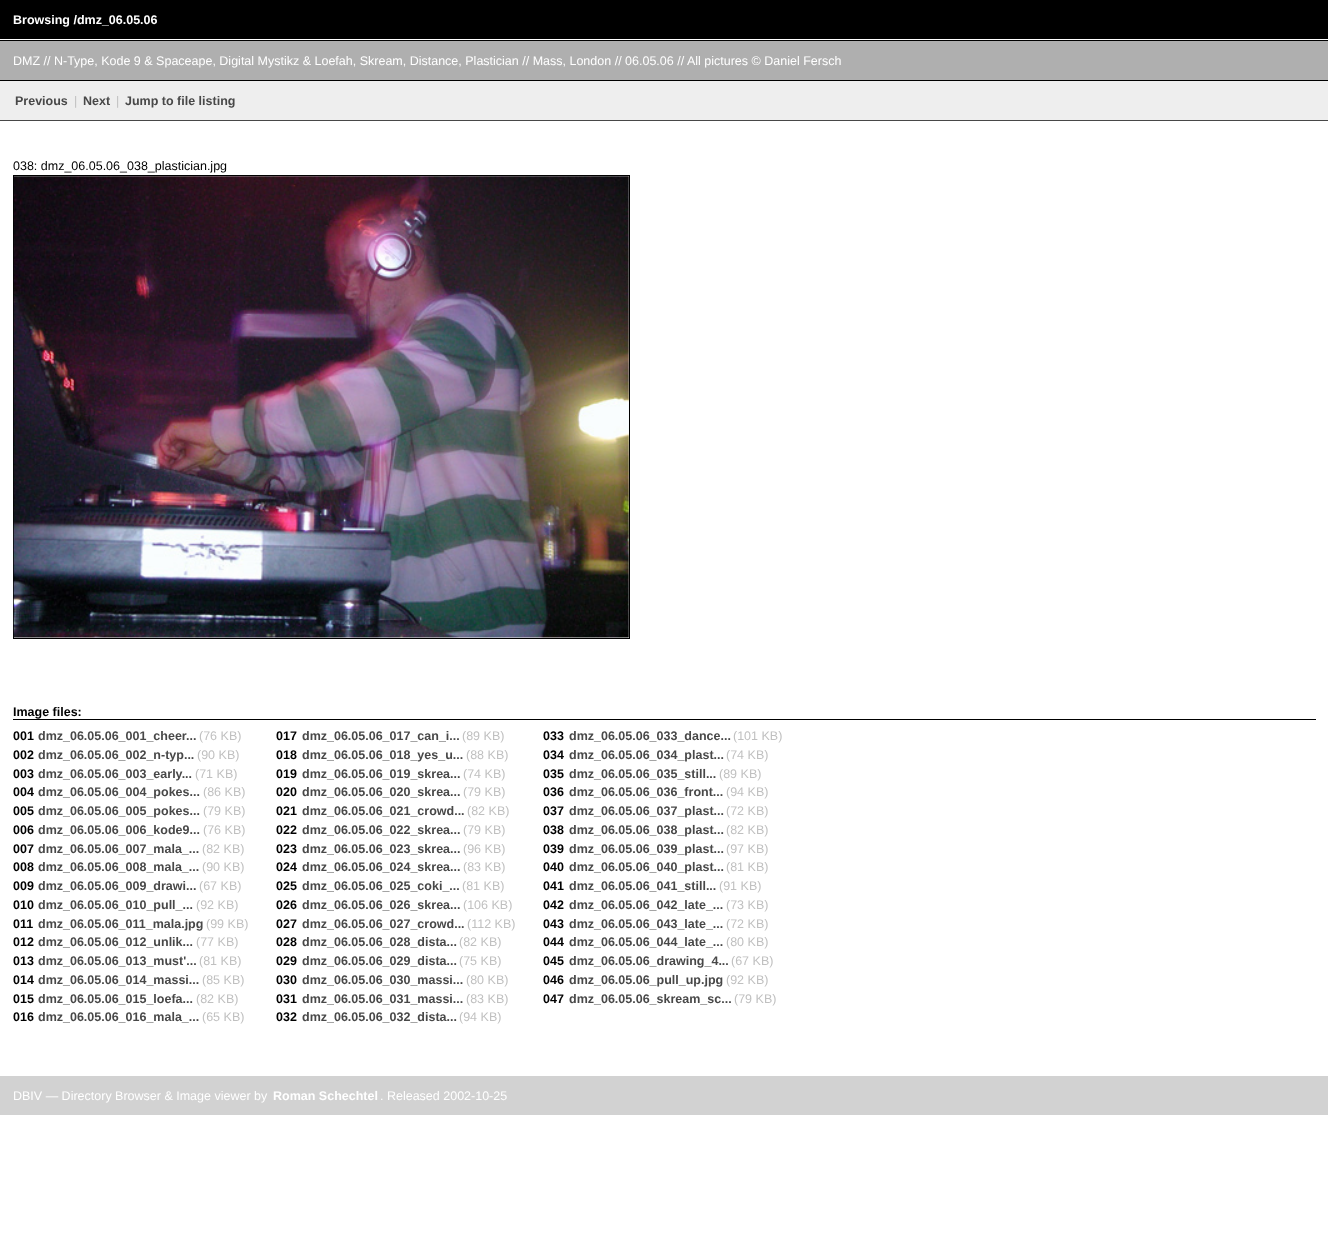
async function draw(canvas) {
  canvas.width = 1328;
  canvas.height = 1250;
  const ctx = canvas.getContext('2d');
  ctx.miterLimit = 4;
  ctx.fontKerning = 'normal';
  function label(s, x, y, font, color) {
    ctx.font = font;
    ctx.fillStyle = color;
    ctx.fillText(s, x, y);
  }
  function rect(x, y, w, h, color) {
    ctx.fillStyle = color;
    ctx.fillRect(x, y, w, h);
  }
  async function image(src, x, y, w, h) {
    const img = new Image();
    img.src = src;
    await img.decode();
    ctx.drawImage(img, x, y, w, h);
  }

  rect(0, 0, 1328, 1250, '#fff');
  rect(0, 0, 1328, 39, '#000');
  label('Browsing /dmz_06.05.06', 13, 24, 'bold 12.5px Liberation Sans', '#fff');
  rect(0, 41, 1328, 39, '#afafaf');
  rect(0, 40, 1328, 1, '#000');
  label('DMZ // N-Type, Kode 9 & Spaceape, Digital Mystikz & Loefah, Skream, Distance, Plastician // Mass, London // 06.05.06 // All pictures © Daniel Fersch', 13, 65, '12.5px Liberation Sans', '#fff');
  rect(0, 81, 1328, 39, '#eee');
  rect(0, 80, 1328, 1, '#000');
  rect(0, 120, 1328, 1, '#484848');
  label('Previous', 15, 105, 'bold 12.5px Liberation Sans', '#484848');
  label('|', 74, 105, '12.5px Liberation Sans', '#c0c0c0');
  label('Next', 83, 105, 'bold 12.5px Liberation Sans', '#484848');
  label('|', 116, 105, '12.5px Liberation Sans', '#c0c0c0');
  label('Jump to file listing', 125, 105, 'bold 12.5px Liberation Sans', '#484848');
  label('038: dmz_06.05.06_038_plastician.jpg', 13, 170, '12.5px Liberation Sans', '#000');
  ctx.strokeStyle = '#000';
  ctx.strokeRect(13.5, 175.5, 616, 463);
  await image('assets/img1.png', 13, 176, 616, 462);
  rect(13, 719, 1303, 1, '#000');
  label('Image files:', 13, 716, 'bold 12.5px Liberation Sans', '#000');
  label('001', 13, 740, 'bold 12.5px Liberation Sans', '#000');
  label('dmz_06.05.06_001_cheer...', 38, 740, 'bold 12.5px Liberation Sans', '#484848');
  label('(76 KB)', 199, 740, '12.5px Liberation Sans', '#c0c0c0');
  label('002', 13, 759, 'bold 12.5px Liberation Sans', '#000');
  label('dmz_06.05.06_002_n-typ...', 38, 759, 'bold 12.5px Liberation Sans', '#484848');
  label('(90 KB)', 197, 759, '12.5px Liberation Sans', '#c0c0c0');
  label('003', 13, 778, 'bold 12.5px Liberation Sans', '#000');
  label('dmz_06.05.06_003_early...', 38, 778, 'bold 12.5px Liberation Sans', '#484848');
  label('(71 KB)', 195, 778, '12.5px Liberation Sans', '#c0c0c0');
  label('004', 13, 796, 'bold 12.5px Liberation Sans', '#000');
  label('dmz_06.05.06_004_pokes...', 38, 796, 'bold 12.5px Liberation Sans', '#484848');
  label('(86 KB)', 203, 796, '12.5px Liberation Sans', '#c0c0c0');
  label('005', 13, 815, 'bold 12.5px Liberation Sans', '#000');
  label('dmz_06.05.06_005_pokes...', 38, 815, 'bold 12.5px Liberation Sans', '#484848');
  label('(79 KB)', 203, 815, '12.5px Liberation Sans', '#c0c0c0');
  label('006', 13, 834, 'bold 12.5px Liberation Sans', '#000');
  label('dmz_06.05.06_006_kode9...', 38, 834, 'bold 12.5px Liberation Sans', '#484848');
  label('(76 KB)', 203, 834, '12.5px Liberation Sans', '#c0c0c0');
  label('007', 13, 853, 'bold 12.5px Liberation Sans', '#000');
  label('dmz_06.05.06_007_mala_...', 38, 853, 'bold 12.5px Liberation Sans', '#484848');
  label('(82 KB)', 202, 853, '12.5px Liberation Sans', '#c0c0c0');
  label('008', 13, 871, 'bold 12.5px Liberation Sans', '#000');
  label('dmz_06.05.06_008_mala_...', 38, 871, 'bold 12.5px Liberation Sans', '#484848');
  label('(90 KB)', 202, 871, '12.5px Liberation Sans', '#c0c0c0');
  label('009', 13, 890, 'bold 12.5px Liberation Sans', '#000');
  label('dmz_06.05.06_009_drawi...', 38, 890, 'bold 12.5px Liberation Sans', '#484848');
  label('(67 KB)', 199, 890, '12.5px Liberation Sans', '#c0c0c0');
  label('010', 13, 909, 'bold 12.5px Liberation Sans', '#000');
  label('dmz_06.05.06_010_pull_...', 38, 909, 'bold 12.5px Liberation Sans', '#484848');
  label('(92 KB)', 196, 909, '12.5px Liberation Sans', '#c0c0c0');
  label('011', 13, 928, 'bold 12.5px Liberation Sans', '#000');
  label('dmz_06.05.06_011_mala.jpg', 38, 928, 'bold 12.5px Liberation Sans', '#484848');
  label('(99 KB)', 206, 928, '12.5px Liberation Sans', '#c0c0c0');
  label('012', 13, 946, 'bold 12.5px Liberation Sans', '#000');
  label('dmz_06.05.06_012_unlik...', 38, 946, 'bold 12.5px Liberation Sans', '#484848');
  label('(77 KB)', 196, 946, '12.5px Liberation Sans', '#c0c0c0');
  label('013', 13, 965, 'bold 12.5px Liberation Sans', '#000');
  label('dmz_06.05.06_013_must\'...', 38, 965, 'bold 12.5px Liberation Sans', '#484848');
  label('(81 KB)', 199, 965, '12.5px Liberation Sans', '#c0c0c0');
  label('014', 13, 984, 'bold 12.5px Liberation Sans', '#000');
  label('dmz_06.05.06_014_massi...', 38, 984, 'bold 12.5px Liberation Sans', '#484848');
  label('(85 KB)', 202, 984, '12.5px Liberation Sans', '#c0c0c0');
  label('015', 13, 1003, 'bold 12.5px Liberation Sans', '#000');
  label('dmz_06.05.06_015_loefa...', 38, 1003, 'bold 12.5px Liberation Sans', '#484848');
  label('(82 KB)', 196, 1003, '12.5px Liberation Sans', '#c0c0c0');
  label('016', 13, 1021, 'bold 12.5px Liberation Sans', '#000');
  label('dmz_06.05.06_016_mala_...', 38, 1021, 'bold 12.5px Liberation Sans', '#484848');
  label('(65 KB)', 202, 1021, '12.5px Liberation Sans', '#c0c0c0');
  label('017', 276, 740, 'bold 12.5px Liberation Sans', '#000');
  label('dmz_06.05.06_017_can_i...', 302, 740, 'bold 12.5px Liberation Sans', '#484848');
  label('(89 KB)', 462, 740, '12.5px Liberation Sans', '#c0c0c0');
  label('018', 276, 759, 'bold 12.5px Liberation Sans', '#000');
  label('dmz_06.05.06_018_yes_u...', 302, 759, 'bold 12.5px Liberation Sans', '#484848');
  label('(88 KB)', 466, 759, '12.5px Liberation Sans', '#c0c0c0');
  label('019', 276, 778, 'bold 12.5px Liberation Sans', '#000');
  label('dmz_06.05.06_019_skrea...', 302, 778, 'bold 12.5px Liberation Sans', '#484848');
  label('(74 KB)', 463, 778, '12.5px Liberation Sans', '#c0c0c0');
  label('020', 276, 796, 'bold 12.5px Liberation Sans', '#000');
  label('dmz_06.05.06_020_skrea...', 302, 796, 'bold 12.5px Liberation Sans', '#484848');
  label('(79 KB)', 463, 796, '12.5px Liberation Sans', '#c0c0c0');
  label('021', 276, 815, 'bold 12.5px Liberation Sans', '#000');
  label('dmz_06.05.06_021_crowd...', 302, 815, 'bold 12.5px Liberation Sans', '#484848');
  label('(82 KB)', 467, 815, '12.5px Liberation Sans', '#c0c0c0');
  label('022', 276, 834, 'bold 12.5px Liberation Sans', '#000');
  label('dmz_06.05.06_022_skrea...', 302, 834, 'bold 12.5px Liberation Sans', '#484848');
  label('(79 KB)', 463, 834, '12.5px Liberation Sans', '#c0c0c0');
  label('023', 276, 853, 'bold 12.5px Liberation Sans', '#000');
  label('dmz_06.05.06_023_skrea...', 302, 853, 'bold 12.5px Liberation Sans', '#484848');
  label('(96 KB)', 463, 853, '12.5px Liberation Sans', '#c0c0c0');
  label('024', 276, 871, 'bold 12.5px Liberation Sans', '#000');
  label('dmz_06.05.06_024_skrea...', 302, 871, 'bold 12.5px Liberation Sans', '#484848');
  label('(83 KB)', 463, 871, '12.5px Liberation Sans', '#c0c0c0');
  label('025', 276, 890, 'bold 12.5px Liberation Sans', '#000');
  label('dmz_06.05.06_025_coki_...', 302, 890, 'bold 12.5px Liberation Sans', '#484848');
  label('(81 KB)', 462, 890, '12.5px Liberation Sans', '#c0c0c0');
  label('026', 276, 909, 'bold 12.5px Liberation Sans', '#000');
  label('dmz_06.05.06_026_skrea...', 302, 909, 'bold 12.5px Liberation Sans', '#484848');
  label('(106 KB)', 463, 909, '12.5px Liberation Sans', '#c0c0c0');
  label('027', 276, 928, 'bold 12.5px Liberation Sans', '#000');
  label('dmz_06.05.06_027_crowd...', 302, 928, 'bold 12.5px Liberation Sans', '#484848');
  label('(112 KB)', 467, 928, '12.5px Liberation Sans', '#c0c0c0');
  label('028', 276, 946, 'bold 12.5px Liberation Sans', '#000');
  label('dmz_06.05.06_028_dista...', 302, 946, 'bold 12.5px Liberation Sans', '#484848');
  label('(82 KB)', 459, 946, '12.5px Liberation Sans', '#c0c0c0');
  label('029', 276, 965, 'bold 12.5px Liberation Sans', '#000');
  label('dmz_06.05.06_029_dista...', 302, 965, 'bold 12.5px Liberation Sans', '#484848');
  label('(75 KB)', 459, 965, '12.5px Liberation Sans', '#c0c0c0');
  label('030', 276, 984, 'bold 12.5px Liberation Sans', '#000');
  label('dmz_06.05.06_030_massi...', 302, 984, 'bold 12.5px Liberation Sans', '#484848');
  label('(80 KB)', 466, 984, '12.5px Liberation Sans', '#c0c0c0');
  label('031', 276, 1003, 'bold 12.5px Liberation Sans', '#000');
  label('dmz_06.05.06_031_massi...', 302, 1003, 'bold 12.5px Liberation Sans', '#484848');
  label('(83 KB)', 466, 1003, '12.5px Liberation Sans', '#c0c0c0');
  label('032', 276, 1021, 'bold 12.5px Liberation Sans', '#000');
  label('dmz_06.05.06_032_dista...', 302, 1021, 'bold 12.5px Liberation Sans', '#484848');
  label('(94 KB)', 459, 1021, '12.5px Liberation Sans', '#c0c0c0');
  label('033', 543, 740, 'bold 12.5px Liberation Sans', '#000');
  label('dmz_06.05.06_033_dance...', 569, 740, 'bold 12.5px Liberation Sans', '#484848');
  label('(101 KB)', 733, 740, '12.5px Liberation Sans', '#c0c0c0');
  label('034', 543, 759, 'bold 12.5px Liberation Sans', '#000');
  label('dmz_06.05.06_034_plast...', 569, 759, 'bold 12.5px Liberation Sans', '#484848');
  label('(74 KB)', 726, 759, '12.5px Liberation Sans', '#c0c0c0');
  label('035', 543, 778, 'bold 12.5px Liberation Sans', '#000');
  label('dmz_06.05.06_035_still...', 569, 778, 'bold 12.5px Liberation Sans', '#484848');
  label('(89 KB)', 719, 778, '12.5px Liberation Sans', '#c0c0c0');
  label('036', 543, 796, 'bold 12.5px Liberation Sans', '#000');
  label('dmz_06.05.06_036_front...', 569, 796, 'bold 12.5px Liberation Sans', '#484848');
  label('(94 KB)', 726, 796, '12.5px Liberation Sans', '#c0c0c0');
  label('037', 543, 815, 'bold 12.5px Liberation Sans', '#000');
  label('dmz_06.05.06_037_plast...', 569, 815, 'bold 12.5px Liberation Sans', '#484848');
  label('(72 KB)', 726, 815, '12.5px Liberation Sans', '#c0c0c0');
  label('038', 543, 834, 'bold 12.5px Liberation Sans', '#000');
  label('dmz_06.05.06_038_plast...', 569, 834, 'bold 12.5px Liberation Sans', '#484848');
  label('(82 KB)', 726, 834, '12.5px Liberation Sans', '#c0c0c0');
  label('039', 543, 853, 'bold 12.5px Liberation Sans', '#000');
  label('dmz_06.05.06_039_plast...', 569, 853, 'bold 12.5px Liberation Sans', '#484848');
  label('(97 KB)', 726, 853, '12.5px Liberation Sans', '#c0c0c0');
  label('040', 543, 871, 'bold 12.5px Liberation Sans', '#000');
  label('dmz_06.05.06_040_plast...', 569, 871, 'bold 12.5px Liberation Sans', '#484848');
  label('(81 KB)', 726, 871, '12.5px Liberation Sans', '#c0c0c0');
  label('041', 543, 890, 'bold 12.5px Liberation Sans', '#000');
  label('dmz_06.05.06_041_still...', 569, 890, 'bold 12.5px Liberation Sans', '#484848');
  label('(91 KB)', 719, 890, '12.5px Liberation Sans', '#c0c0c0');
  label('042', 543, 909, 'bold 12.5px Liberation Sans', '#000');
  label('dmz_06.05.06_042_late_...', 569, 909, 'bold 12.5px Liberation Sans', '#484848');
  label('(73 KB)', 726, 909, '12.5px Liberation Sans', '#c0c0c0');
  label('043', 543, 928, 'bold 12.5px Liberation Sans', '#000');
  label('dmz_06.05.06_043_late_...', 569, 928, 'bold 12.5px Liberation Sans', '#484848');
  label('(72 KB)', 726, 928, '12.5px Liberation Sans', '#c0c0c0');
  label('044', 543, 946, 'bold 12.5px Liberation Sans', '#000');
  label('dmz_06.05.06_044_late_...', 569, 946, 'bold 12.5px Liberation Sans', '#484848');
  label('(80 KB)', 726, 946, '12.5px Liberation Sans', '#c0c0c0');
  label('045', 543, 965, 'bold 12.5px Liberation Sans', '#000');
  label('dmz_06.05.06_drawing_4...', 569, 965, 'bold 12.5px Liberation Sans', '#484848');
  label('(67 KB)', 731, 965, '12.5px Liberation Sans', '#c0c0c0');
  label('046', 543, 984, 'bold 12.5px Liberation Sans', '#000');
  label('dmz_06.05.06_pull_up.jpg', 569, 984, 'bold 12.5px Liberation Sans', '#484848');
  label('(92 KB)', 726, 984, '12.5px Liberation Sans', '#c0c0c0');
  label('047', 543, 1003, 'bold 12.5px Liberation Sans', '#000');
  label('dmz_06.05.06_skream_sc...', 569, 1003, 'bold 12.5px Liberation Sans', '#484848');
  label('(79 KB)', 734, 1003, '12.5px Liberation Sans', '#c0c0c0');
  rect(0, 1076, 1328, 39, '#d2d2d2');
  label('DBIV — Directory Browser & Image viewer by', 13, 1100, '12.5px Liberation Sans', '#fff');
  label('Roman Schechtel', 273, 1100, 'bold 12.5px Liberation Sans', '#fff');
  label('. Released 2002-10-25', 380, 1100, '12.5px Liberation Sans', '#fff');
}

draw(document.querySelector('canvas'));
